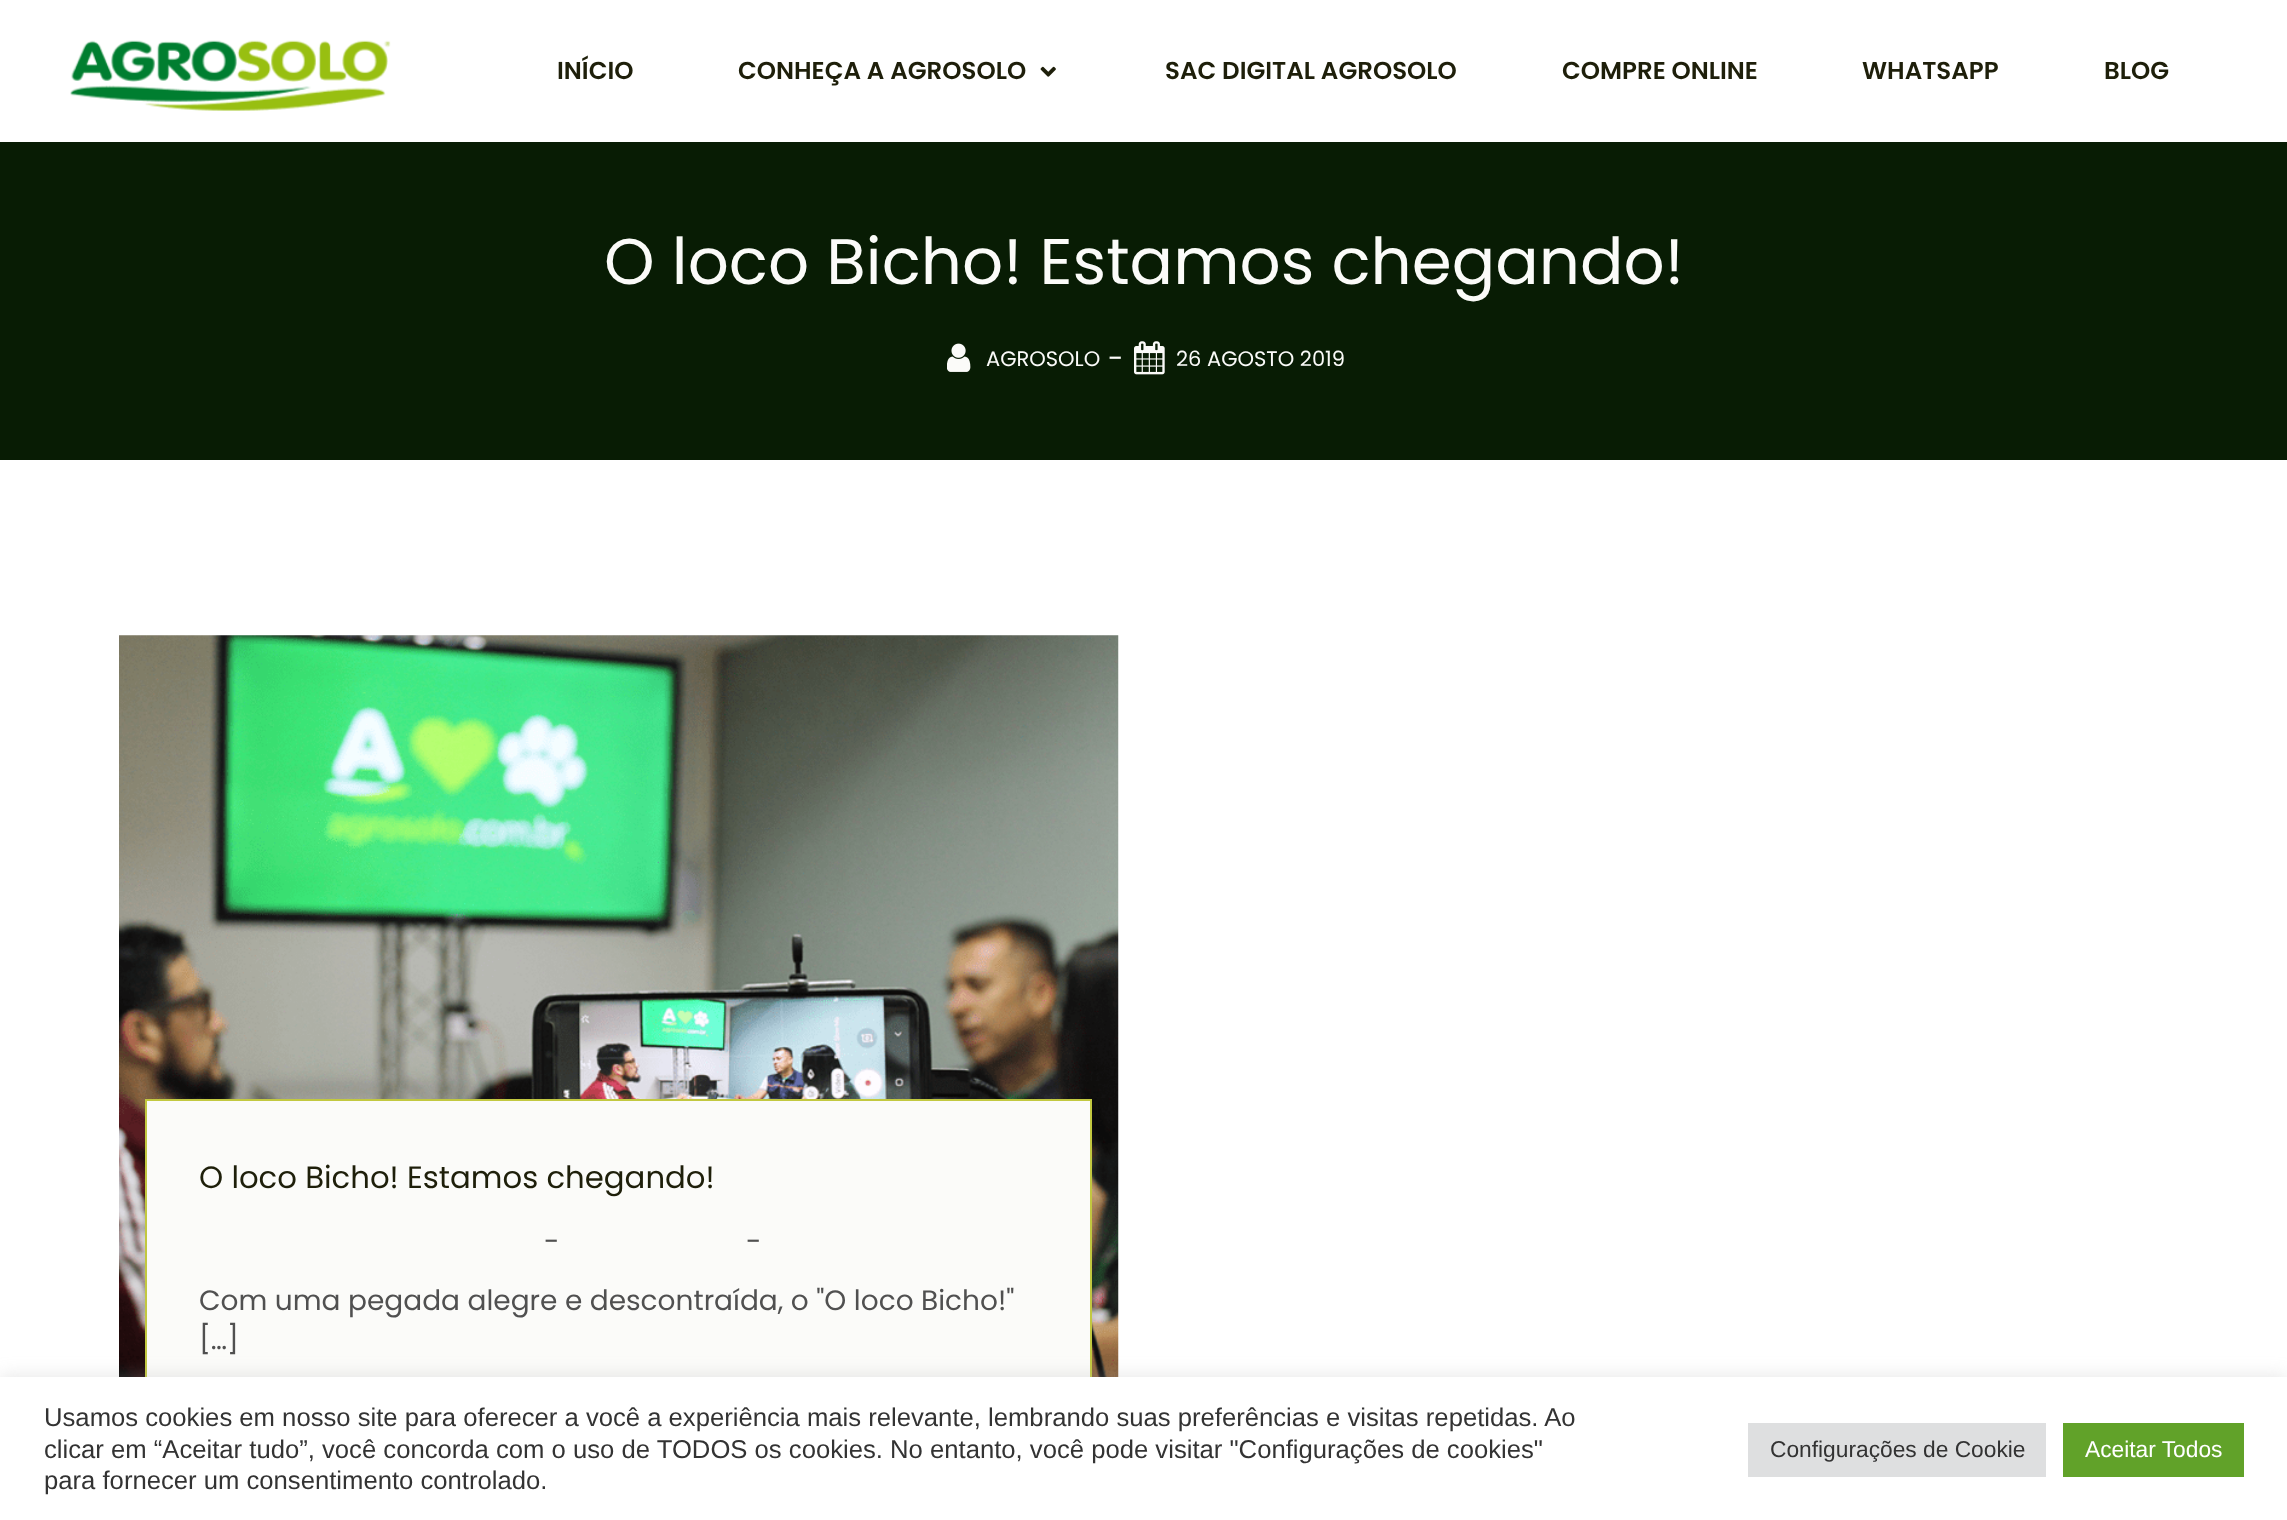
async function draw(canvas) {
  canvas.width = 2287;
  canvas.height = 1520;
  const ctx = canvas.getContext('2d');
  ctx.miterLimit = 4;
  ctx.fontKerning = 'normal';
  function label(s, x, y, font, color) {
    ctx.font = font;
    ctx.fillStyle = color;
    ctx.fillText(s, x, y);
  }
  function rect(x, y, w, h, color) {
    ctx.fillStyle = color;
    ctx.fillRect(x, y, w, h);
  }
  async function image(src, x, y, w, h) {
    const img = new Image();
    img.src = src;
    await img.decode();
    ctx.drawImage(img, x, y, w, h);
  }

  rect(0, 0, 2287, 1520, '#fff');
  await image('assets/img1.png', 70, 40, 321, 71);
  label('INÍCIO', 557, 79, '600 24.5px Poppins', '#1e1f0a');
  label('CONHEÇA A AGROSOLO', 738, 79, '600 24.5px Poppins', '#1e1f0a');
  await image('assets/img2.png', 1040, 66, 16, 11);
  label('SAC DIGITAL AGROSOLO', 1165, 79, '600 24.5px Poppins', '#1e1f0a');
  label('COMPRE ONLINE', 1562, 79, '600 24.5px Poppins', '#1e1f0a');
  label('WHATSAPP', 1862, 79, '600 24.5px Poppins', '#1e1f0a');
  label('BLOG', 2104, 79, '600 24.5px Poppins', '#1e1f0a');
  rect(0, 142, 2287, 318, '#081c04');
  label('O loco Bicho! Estamos chegando!', 604, 284, '64.4px Poppins', '#fbfbf9');
  await image('assets/img3.png', 947, 343, 24, 29);
  label('AGROSOLO', 986, 366, '21px Poppins', '#fbfbf9');
  label('-', 1108, 368, '28px Poppins', '#fbfbf9');
  await image('assets/img4.png', 1134, 341, 31, 34);
  label('26 AGOSTO 2019', 1176, 366, '21px Poppins', '#fbfbf9');
  await image('assets/img5.png', 119, 635, 1000, 742);
  rect(147, 1101, 943, 276, '#fbfbf9');
  ctx.strokeStyle = '#c2c840';
  ctx.lineWidth = 2;
  ctx.strokeRect(146, 1100, 945, 348);
  label('O loco Bicho! Estamos chegando!', 199, 1188, '30.75px Poppins', '#1e1f0a');
  label('-', 544, 1251, '28px Poppins', '#505050');
  label('-', 746, 1251, '28px Poppins', '#505050');
  label('Com uma pegada alegre e descontraída, o "O loco Bicho!"', 199, 1310, '28px Poppins', '#505050');
  label('[…]', 199, 1349, '28px Poppins', '#505050');
  ctx.fillStyle = '#acabab4d';
  ctx.filter = 'blur(9px)';
  ctx.beginPath();
  ctx.rect(0, 1376, 2287, 143);
  ctx.fill();
  ctx.filter = 'none';
  rect(0, 1377, 2287, 143, '#fff');
  label('Usamos cookies em nosso site para oferecer a você a experiência mais relevante, lembrando suas preferências e visitas repetidas. Ao', 44, 1426, '25.67px Liberation Sans', '#333');
  label('clicar em “Aceitar tudo”, você concorda com o uso de TODOS os cookies. No entanto, você pode visitar "Configurações de cookies"', 44, 1458, '25.67px Liberation Sans', '#333');
  label('para fornecer um consentimento controlado.', 44, 1489, '25.67px Liberation Sans', '#333');
  rect(1748, 1423, 298, 54, '#dedfe0');
  label('Configurações de Cookie', 1770, 1457, '22.75px Liberation Sans', '#333');
  rect(2063, 1423, 181, 54, '#61a229');
  label('Aceitar Todos', 2085, 1457, '22.75px Liberation Sans', '#fff');
}

draw(document.querySelector('canvas'));
